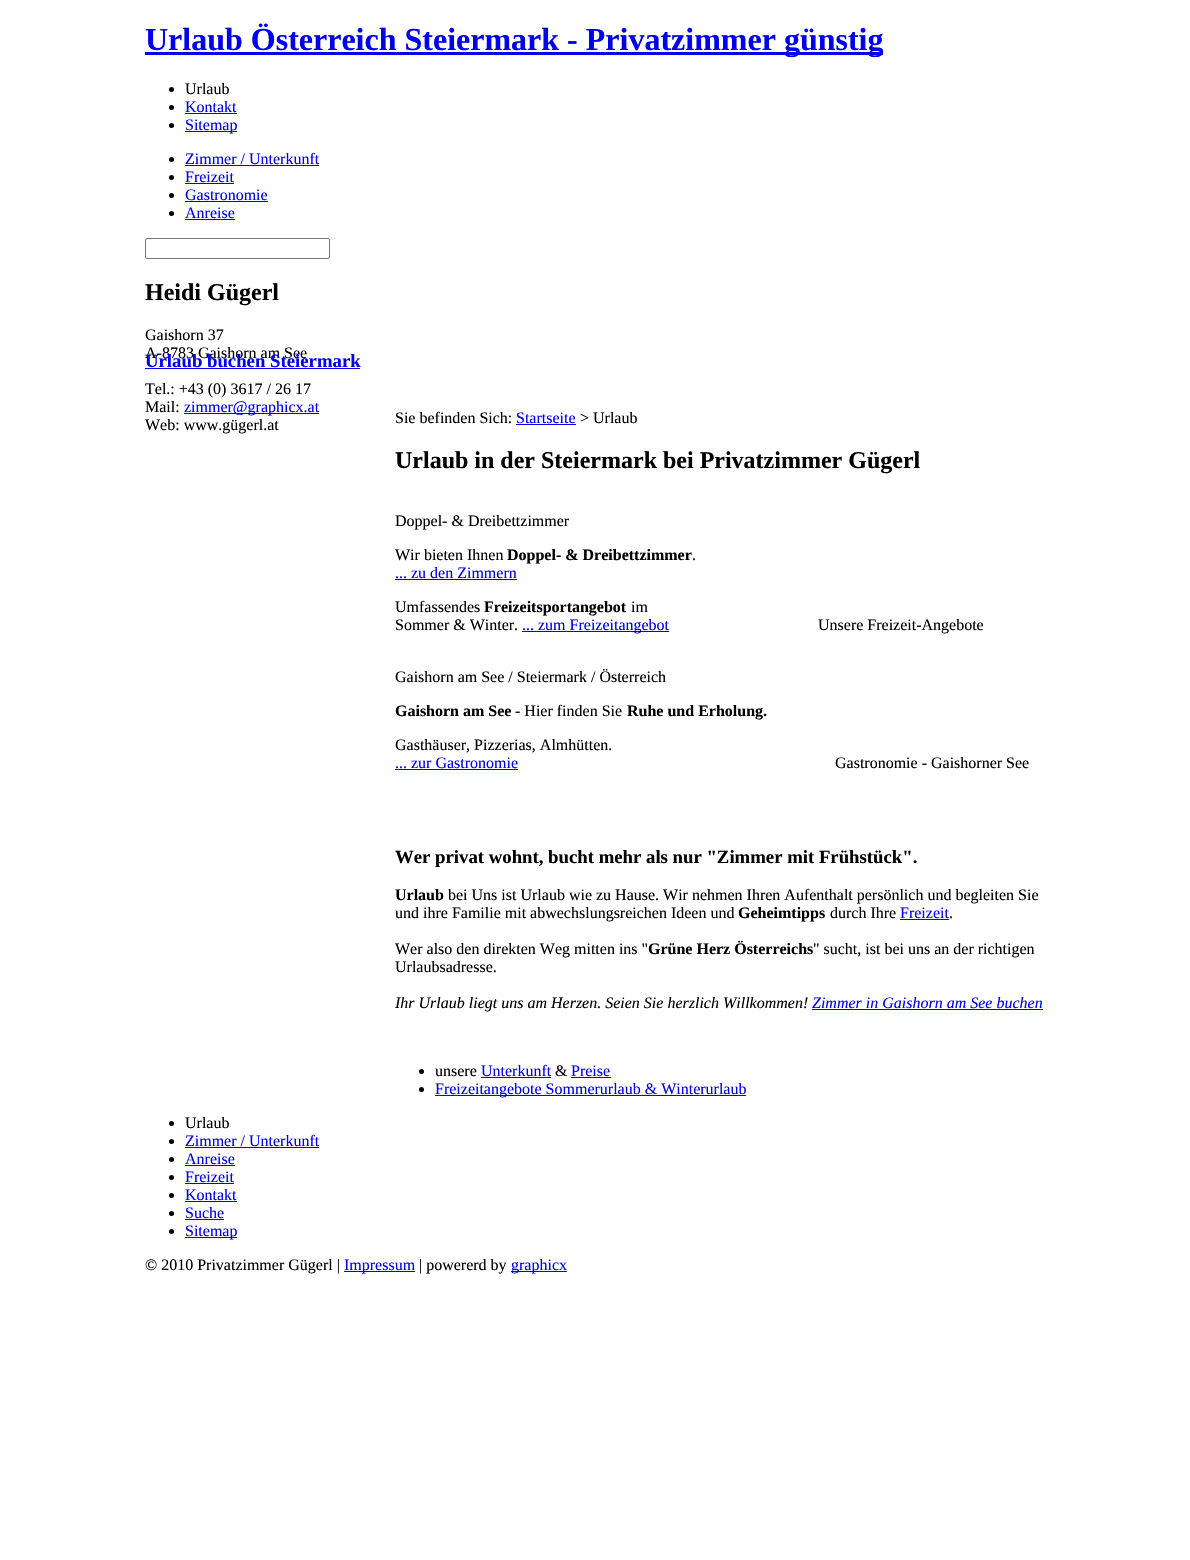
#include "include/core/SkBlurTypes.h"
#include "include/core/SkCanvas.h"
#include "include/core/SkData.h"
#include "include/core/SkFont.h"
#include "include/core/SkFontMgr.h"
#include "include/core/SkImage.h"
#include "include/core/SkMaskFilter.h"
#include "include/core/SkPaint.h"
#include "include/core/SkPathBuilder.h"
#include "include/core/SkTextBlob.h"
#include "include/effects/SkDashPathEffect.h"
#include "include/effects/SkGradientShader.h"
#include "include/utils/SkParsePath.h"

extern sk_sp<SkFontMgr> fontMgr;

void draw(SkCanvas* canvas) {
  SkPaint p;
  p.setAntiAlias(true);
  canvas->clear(SK_ColorWHITE);
  p.setColor(SkColorSetRGB(0, 0, 238));
  canvas->drawRect(SkRect::MakeLTRB(145, 52, 883, 55), p);
  p.setColor(SK_ColorBLACK);
  canvas->drawCircle(171.5f, 89.5f, 2.5f, p);
  canvas->drawCircle(171.5f, 107.5f, 2.5f, p);
  p.setColor(SkColorSetRGB(0, 0, 238));
  canvas->drawRect(SkRect::MakeLTRB(185, 113, 237, 114), p);
  p.setColor(SK_ColorBLACK);
  canvas->drawCircle(171.5f, 125.5f, 2.5f, p);
  p.setColor(SkColorSetRGB(0, 0, 238));
  canvas->drawRect(SkRect::MakeLTRB(185, 131, 237, 132), p);
  p.setColor(SK_ColorBLACK);
  canvas->drawCircle(171.5f, 159.5f, 2.5f, p);
  p.setColor(SkColorSetRGB(0, 0, 238));
  canvas->drawRect(SkRect::MakeLTRB(185, 165, 319, 166), p);
  p.setColor(SK_ColorBLACK);
  canvas->drawCircle(171.5f, 177.5f, 2.5f, p);
  p.setColor(SkColorSetRGB(0, 0, 238));
  canvas->drawRect(SkRect::MakeLTRB(185, 183, 234, 184), p);
  p.setColor(SK_ColorBLACK);
  canvas->drawCircle(171.5f, 195.5f, 2.5f, p);
  p.setColor(SkColorSetRGB(0, 0, 238));
  canvas->drawRect(SkRect::MakeLTRB(185, 201, 268, 202), p);
  p.setColor(SK_ColorBLACK);
  canvas->drawCircle(171.5f, 213.5f, 2.5f, p);
  p.setColor(SkColorSetRGB(0, 0, 238));
  canvas->drawRect(SkRect::MakeLTRB(185, 219, 235, 220), p);
  p.setStyle(SkPaint::kStroke_Style);
  p.setStrokeWidth(1);
  p.setColor(SkColorSetRGB(118, 118, 118));
  canvas->drawRoundRect(SkRect::MakeLTRB(145.5f, 238.5f, 329.5f, 258.5f), 1.5f, 1.5f, p);
  p.setStyle(SkPaint::kFill_Style);
  p.setColor(SkColorSetRGB(0, 0, 238));
  canvas->drawRect(SkRect::MakeLTRB(184, 413, 319, 414), p);
  canvas->drawRect(SkRect::MakeLTRB(145, 368, 360, 369), p);
  canvas->drawRect(SkRect::MakeLTRB(516, 424, 576, 425), p);
  canvas->drawRect(SkRect::MakeLTRB(395, 579, 517, 580), p);
  canvas->drawRect(SkRect::MakeLTRB(522, 631, 669, 632), p);
  canvas->drawRect(SkRect::MakeLTRB(395, 769, 518, 770), p);
  canvas->drawRect(SkRect::MakeLTRB(900, 919, 949, 920), p);
  canvas->drawRect(SkRect::MakeLTRB(812, 1009, 1043, 1010), p);
  p.setColor(SK_ColorBLACK);
  canvas->drawCircle(421.5f, 1071.5f, 2.5f, p);
  p.setColor(SkColorSetRGB(0, 0, 238));
  canvas->drawRect(SkRect::MakeLTRB(481, 1077, 551, 1078), p);
  canvas->drawRect(SkRect::MakeLTRB(571, 1077, 611, 1078), p);
  p.setColor(SK_ColorBLACK);
  canvas->drawCircle(421.5f, 1089.5f, 2.5f, p);
  p.setColor(SkColorSetRGB(0, 0, 238));
  canvas->drawRect(SkRect::MakeLTRB(435, 1095, 746, 1096), p);
  p.setColor(SK_ColorBLACK);
  canvas->drawCircle(171.5f, 1123.5f, 2.5f, p);
  canvas->drawCircle(171.5f, 1141.5f, 2.5f, p);
  p.setColor(SkColorSetRGB(0, 0, 238));
  canvas->drawRect(SkRect::MakeLTRB(185, 1147, 319, 1148), p);
  p.setColor(SK_ColorBLACK);
  canvas->drawCircle(171.5f, 1159.5f, 2.5f, p);
  p.setColor(SkColorSetRGB(0, 0, 238));
  canvas->drawRect(SkRect::MakeLTRB(185, 1165, 235, 1166), p);
  p.setColor(SK_ColorBLACK);
  canvas->drawCircle(171.5f, 1177.5f, 2.5f, p);
  p.setColor(SkColorSetRGB(0, 0, 238));
  canvas->drawRect(SkRect::MakeLTRB(185, 1183, 234, 1184), p);
  p.setColor(SK_ColorBLACK);
  canvas->drawCircle(171.5f, 1195.5f, 2.5f, p);
  p.setColor(SkColorSetRGB(0, 0, 238));
  canvas->drawRect(SkRect::MakeLTRB(185, 1201, 237, 1202), p);
  p.setColor(SK_ColorBLACK);
  canvas->drawCircle(171.5f, 1213.5f, 2.5f, p);
  p.setColor(SkColorSetRGB(0, 0, 238));
  canvas->drawRect(SkRect::MakeLTRB(185, 1219, 224, 1220), p);
  p.setColor(SK_ColorBLACK);
  canvas->drawCircle(171.5f, 1231.5f, 2.5f, p);
  p.setColor(SkColorSetRGB(0, 0, 238));
  canvas->drawRect(SkRect::MakeLTRB(185, 1237, 237, 1238), p);
  canvas->drawRect(SkRect::MakeLTRB(344, 1271, 415, 1272), p);
  canvas->drawRect(SkRect::MakeLTRB(511, 1271, 567, 1272), p);
  SkFont font1(fontMgr->matchFamilyStyle("Liberation Serif", SkFontStyle::Bold()), 32);
  font1.setSubpixel(true);
  canvas->drawString("Urlaub Österreich Steiermark - Privatzimmer günstig", 145, 50, font1, p);
  SkFont font2(fontMgr->matchFamilyStyle("Liberation Serif", SkFontStyle::Normal()), 16);
  font2.setSubpixel(true);
  p.setColor(SK_ColorBLACK);
  canvas->drawString("Urlaub", 185, 94, font2, p);
  p.setColor(SkColorSetRGB(0, 0, 238));
  canvas->drawString("Kontakt", 185, 112, font2, p);
  canvas->drawString("Sitemap", 185, 130, font2, p);
  canvas->drawString("Zimmer / Unterkunft", 185, 164, font2, p);
  canvas->drawString("Freizeit", 185, 182, font2, p);
  canvas->drawString("Gastronomie", 185, 200, font2, p);
  canvas->drawString("Anreise", 185, 218, font2, p);
  SkFont font3(fontMgr->matchFamilyStyle("Liberation Serif", SkFontStyle::Bold()), 24);
  font3.setSubpixel(true);
  p.setColor(SK_ColorBLACK);
  canvas->drawString("Heidi Gügerl", 145, 300, font3, p);
  canvas->drawString("Gaishorn 37", 145, 340, font2, p);
  canvas->drawString("A-8783 Gaishorn am See", 145, 358, font2, p);
  canvas->drawString("Tel.: +43 (0) 3617 / 26 17", 145, 394, font2, p);
  canvas->drawString("Mail:", 145, 412, font2, p);
  p.setColor(SkColorSetRGB(0, 0, 238));
  canvas->drawString("zimmer@graphicx.at", 184, 412, font2, p);
  p.setColor(SK_ColorBLACK);
  canvas->drawString("Web: www.gügerl.at", 145, 430, font2, p);
  SkFont font4(fontMgr->matchFamilyStyle("Liberation Serif", SkFontStyle::Bold()), 18.75f);
  font4.setSubpixel(true);
  p.setColor(SkColorSetRGB(0, 0, 238));
  canvas->drawString("Urlaub buchen Steiermark", 145, 367, font4, p);
  p.setColor(SK_ColorBLACK);
  canvas->drawString("Sie befinden Sich:", 395, 423, font2, p);
  p.setColor(SkColorSetRGB(0, 0, 238));
  canvas->drawString("Startseite", 516, 423, font2, p);
  p.setColor(SK_ColorBLACK);
  canvas->drawString("> Urlaub", 580, 423, font2, p);
  canvas->drawString("Urlaub in der Steiermark bei Privatzimmer Gügerl", 395, 468, font3, p);
  canvas->drawString("Doppel- & Dreibettzimmer", 395, 526, font2, p);
  canvas->drawString("Wir bieten Ihnen", 395, 560, font2, p);
  SkFont font5(fontMgr->matchFamilyStyle("Liberation Serif", SkFontStyle::Bold()), 16);
  font5.setSubpixel(true);
  canvas->drawString("Doppel- & Dreibettzimmer", 507, 560, font5, p);
  canvas->drawString(".", 692, 560, font2, p);
  p.setColor(SkColorSetRGB(0, 0, 238));
  canvas->drawString("... zu den Zimmern", 395, 578, font2, p);
  p.setColor(SK_ColorBLACK);
  canvas->drawString("Umfassendes", 395, 612, font2, p);
  canvas->drawString("Freizeitsportangebot", 484, 612, font5, p);
  canvas->drawString("im", 631, 612, font2, p);
  canvas->drawString("Sommer & Winter.", 395, 630, font2, p);
  p.setColor(SkColorSetRGB(0, 0, 238));
  canvas->drawString("... zum Freizeitangebot", 522, 630, font2, p);
  p.setColor(SK_ColorBLACK);
  canvas->drawString("Unsere Freizeit-Angebote", 818, 630, font2, p);
  canvas->drawString("Gaishorn am See / Steiermark / Österreich", 395, 682, font2, p);
  canvas->drawString("Gaishorn am See", 395, 716, font5, p);
  canvas->drawString("- Hier finden Sie", 515, 716, font2, p);
  canvas->drawString("Ruhe und Erholung.", 627, 716, font5, p);
  canvas->drawString("Gasthäuser, Pizzerias, Almhütten.", 395, 750, font2, p);
  p.setColor(SkColorSetRGB(0, 0, 238));
  canvas->drawString("... zur Gastronomie", 395, 768, font2, p);
  p.setColor(SK_ColorBLACK);
  canvas->drawString("Gastronomie - Gaishorner See", 835, 768, font2, p);
  canvas->drawString("Wer privat wohnt, bucht mehr als nur \"Zimmer mit Frühstück\".", 395, 863, font4, p);
  canvas->drawString("Urlaub", 395, 900, font5, p);
  canvas->drawString("bei Uns ist Urlaub wie zu Hause. Wir nehmen Ihren Aufenthalt persönlich und begleiten Sie", 448, 900, font2, p);
  canvas->drawString("und ihre Familie mit abwechslungsreichen Ideen und", 395, 918, font2, p);
  canvas->drawString("Geheimtipps", 738, 918, font5, p);
  canvas->drawString("durch Ihre", 830, 918, font2, p);
  p.setColor(SkColorSetRGB(0, 0, 238));
  canvas->drawString("Freizeit", 900, 918, font2, p);
  p.setColor(SK_ColorBLACK);
  canvas->drawString(".", 949, 918, font2, p);
  canvas->drawString("Wer also den direkten Weg mitten ins \"", 395, 954, font2, p);
  canvas->drawString("Grüne Herz Österreichs", 648, 954, font5, p);
  canvas->drawString("\" sucht, ist bei uns an der richtigen", 813, 954, font2, p);
  canvas->drawString("Urlaubsadresse.", 395, 972, font2, p);
  SkFont font6(fontMgr->matchFamilyStyle("Liberation Serif", SkFontStyle::Italic()), 16);
  font6.setSubpixel(true);
  canvas->drawString("Ihr Urlaub liegt uns am Herzen. Seien Sie herzlich Willkommen!", 395, 1008, font6, p);
  p.setColor(SkColorSetRGB(0, 0, 238));
  canvas->drawString("Zimmer in Gaishorn am See buchen", 812, 1008, font6, p);
  p.setColor(SK_ColorBLACK);
  canvas->drawString("unsere", 435, 1076, font2, p);
  p.setColor(SkColorSetRGB(0, 0, 238));
  canvas->drawString("Unterkunft", 481, 1076, font2, p);
  p.setColor(SK_ColorBLACK);
  canvas->drawString("&", 555, 1076, font2, p);
  p.setColor(SkColorSetRGB(0, 0, 238));
  canvas->drawString("Preise", 571, 1076, font2, p);
  canvas->drawString("Freizeitangebote Sommerurlaub & Winterurlaub", 435, 1094, font2, p);
  p.setColor(SK_ColorBLACK);
  canvas->drawString("Urlaub", 185, 1128, font2, p);
  p.setColor(SkColorSetRGB(0, 0, 238));
  canvas->drawString("Zimmer / Unterkunft", 185, 1146, font2, p);
  canvas->drawString("Anreise", 185, 1164, font2, p);
  canvas->drawString("Freizeit", 185, 1182, font2, p);
  canvas->drawString("Kontakt", 185, 1200, font2, p);
  canvas->drawString("Suche", 185, 1218, font2, p);
  canvas->drawString("Sitemap", 185, 1236, font2, p);
  p.setColor(SK_ColorBLACK);
  canvas->drawString("© 2010 Privatzimmer Gügerl |", 145, 1270, font2, p);
  p.setColor(SkColorSetRGB(0, 0, 238));
  canvas->drawString("Impressum", 344, 1270, font2, p);
  p.setColor(SK_ColorBLACK);
  canvas->drawString("| powererd by", 419, 1270, font2, p);
  p.setColor(SkColorSetRGB(0, 0, 238));
  canvas->drawString("graphicx", 511, 1270, font2, p);
}
